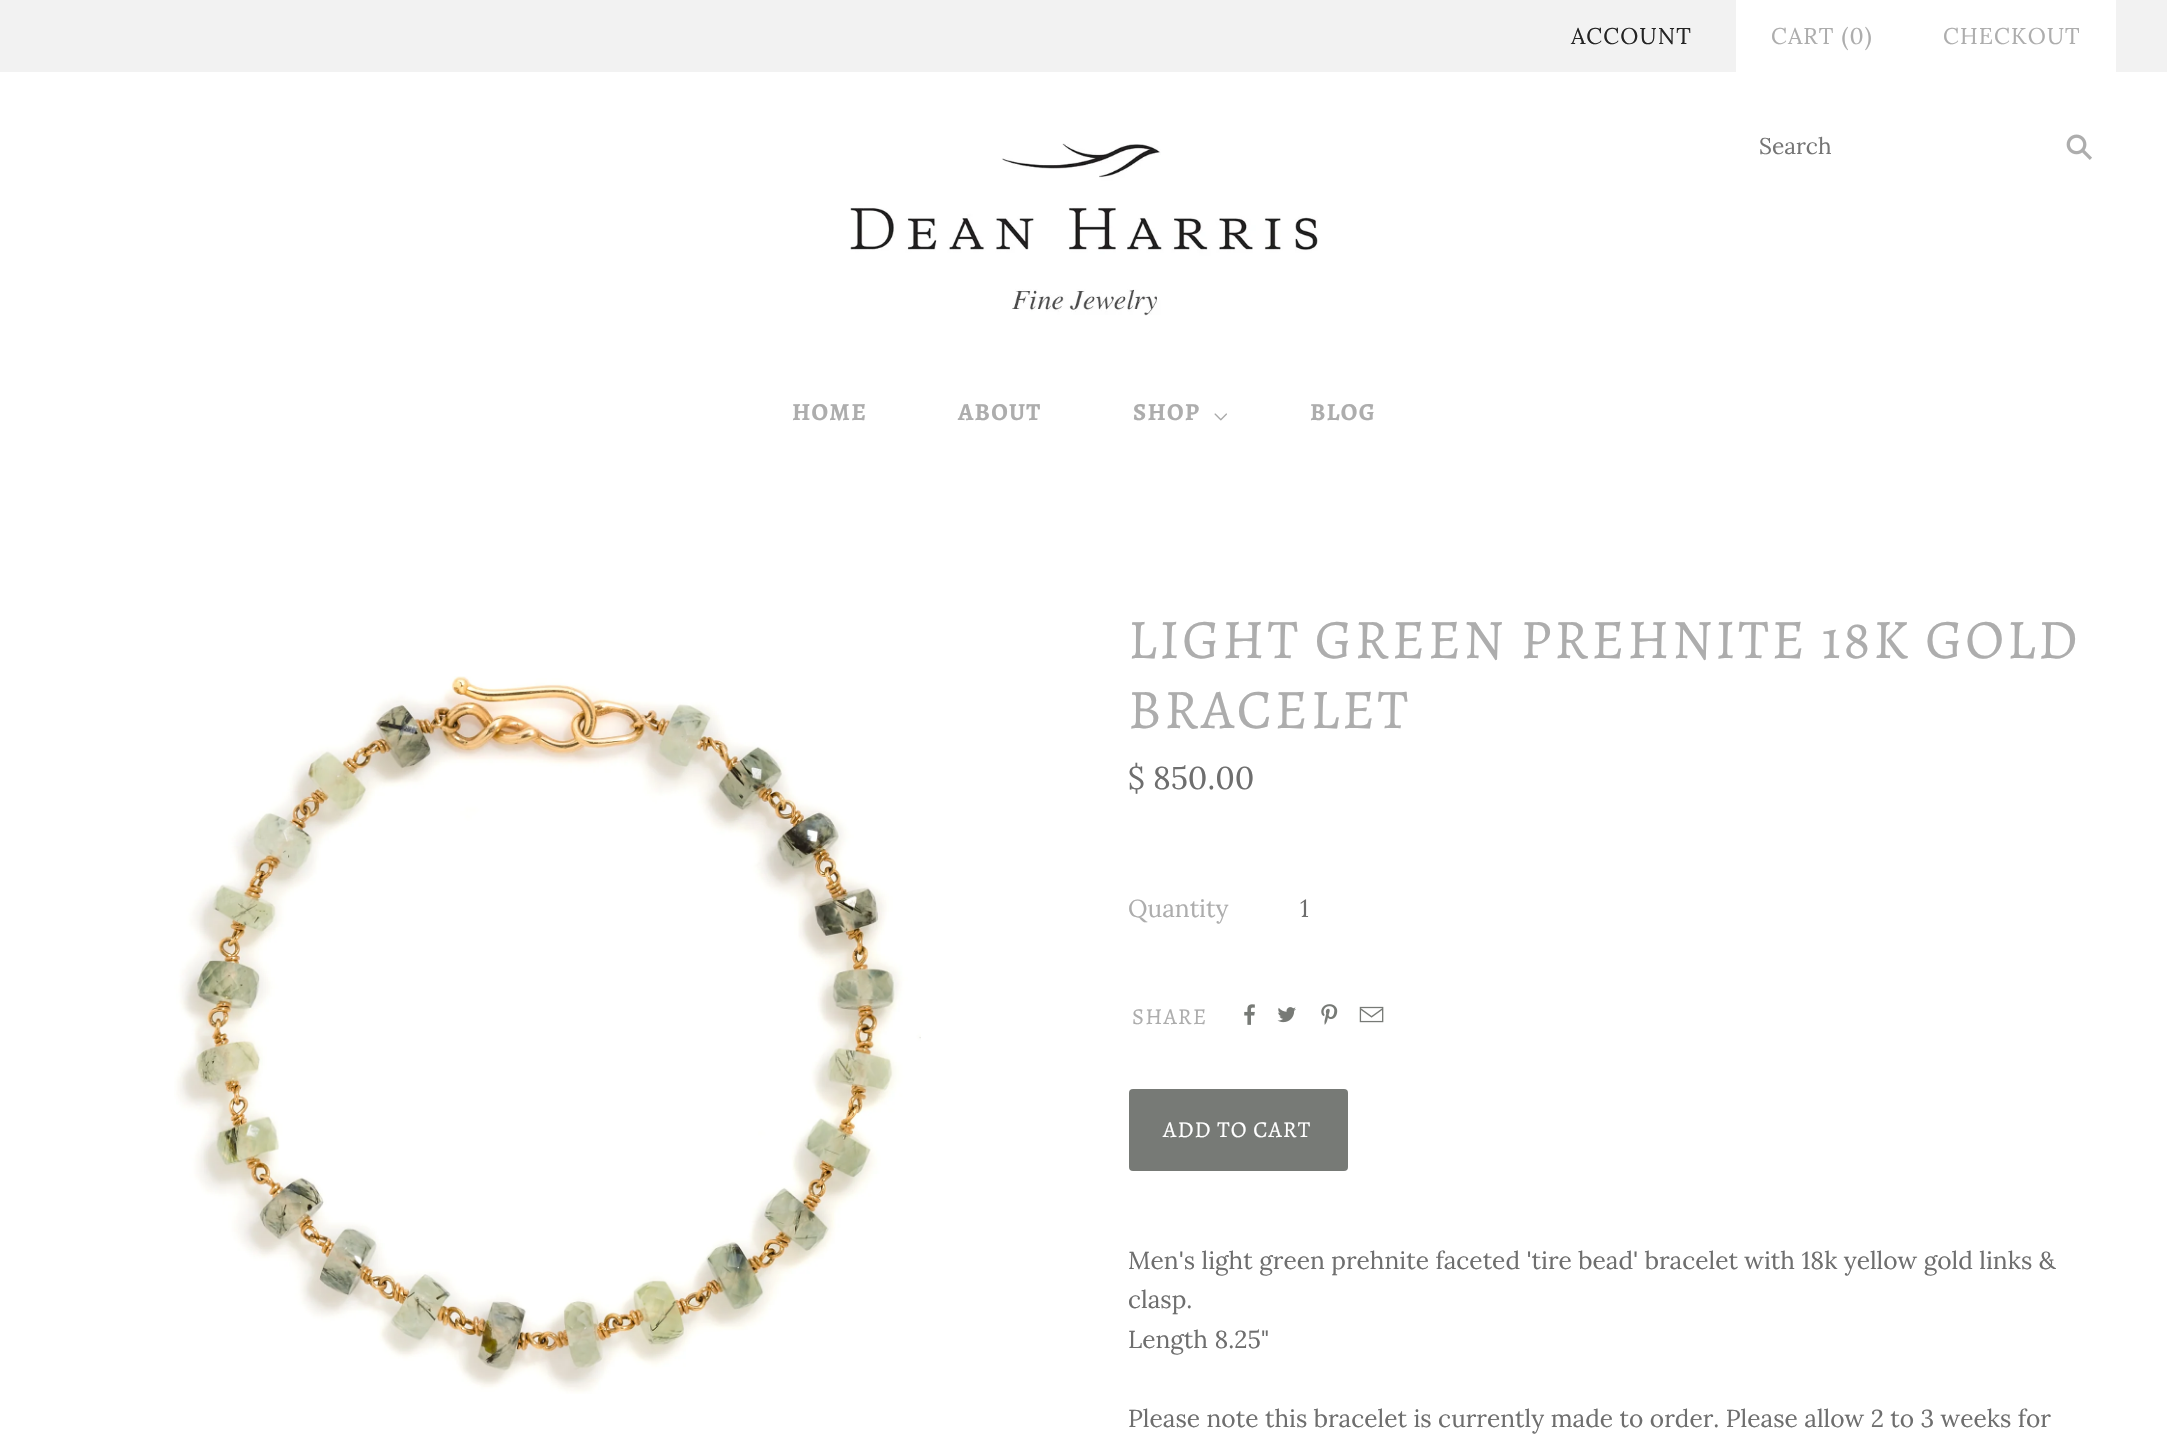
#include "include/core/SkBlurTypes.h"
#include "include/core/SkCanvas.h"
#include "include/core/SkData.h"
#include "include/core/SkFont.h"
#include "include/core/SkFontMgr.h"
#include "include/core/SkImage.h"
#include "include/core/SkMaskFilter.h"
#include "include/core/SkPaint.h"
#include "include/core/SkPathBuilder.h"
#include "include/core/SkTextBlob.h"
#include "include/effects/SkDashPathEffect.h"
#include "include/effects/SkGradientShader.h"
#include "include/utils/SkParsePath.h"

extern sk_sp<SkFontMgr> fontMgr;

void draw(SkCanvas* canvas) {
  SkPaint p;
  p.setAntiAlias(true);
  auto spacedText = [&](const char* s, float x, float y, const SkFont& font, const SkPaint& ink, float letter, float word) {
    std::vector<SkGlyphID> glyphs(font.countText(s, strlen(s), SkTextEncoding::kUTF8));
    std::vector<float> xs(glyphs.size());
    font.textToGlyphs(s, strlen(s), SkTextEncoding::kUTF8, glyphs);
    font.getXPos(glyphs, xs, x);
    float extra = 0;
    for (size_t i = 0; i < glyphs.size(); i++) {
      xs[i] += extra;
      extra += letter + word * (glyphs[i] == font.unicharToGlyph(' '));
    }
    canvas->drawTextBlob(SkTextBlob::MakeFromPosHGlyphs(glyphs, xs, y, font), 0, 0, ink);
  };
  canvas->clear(SK_ColorWHITE);
  p.setColor(SkColorSetRGB(242, 242, 242));
  canvas->drawRect(SkRect::MakeLTRB(0, 0, 2167, 72), p);
  p.setColor(SK_ColorWHITE);
  canvas->drawRect(SkRect::MakeLTRB(1736, 0, 2116, 72), p);
  canvas->drawImageRect(SkImages::DeferredFromEncodedData(SkData::MakeFromFileName("images/1.png")), SkRect::MakeLTRB(2066, 134, 2092, 160), SkSamplingOptions());
  canvas->drawImageRect(SkImages::DeferredFromEncodedData(SkData::MakeFromFileName("images/2.png")), SkRect::MakeLTRB(850, 143, 1318, 316), SkSamplingOptions());
  canvas->drawImageRect(SkImages::DeferredFromEncodedData(SkData::MakeFromFileName("images/3.png")), SkRect::MakeLTRB(1214, 413, 1227, 421), SkSamplingOptions());
  canvas->drawImageRect(SkImages::DeferredFromEncodedData(SkData::MakeFromFileName("images/4.png")), SkRect::MakeLTRB(174, 676, 921, 1394), SkSamplingOptions());
  canvas->drawImageRect(SkImages::DeferredFromEncodedData(SkData::MakeFromFileName("images/5.png")), SkRect::MakeLTRB(1244, 1004, 1255, 1025), SkSamplingOptions());
  canvas->drawImageRect(SkImages::DeferredFromEncodedData(SkData::MakeFromFileName("images/6.png")), SkRect::MakeLTRB(1277, 1007, 1296, 1023), SkSamplingOptions());
  canvas->drawImageRect(SkImages::DeferredFromEncodedData(SkData::MakeFromFileName("images/7.png")), SkRect::MakeLTRB(1321, 1004, 1338, 1025), SkSamplingOptions());
  canvas->drawImageRect(SkImages::DeferredFromEncodedData(SkData::MakeFromFileName("images/8.png")), SkRect::MakeLTRB(1359, 1006, 1384, 1023), SkSamplingOptions());
  p.setColor(SkColorSetRGB(119, 122, 118));
  canvas->drawRoundRect(SkRect::MakeLTRB(1129, 1089, 1348, 1171), 4, 4, p);
  SkFont font1(fontMgr->matchFamilyStyle("Lora", SkFontStyle::Normal()), 22.75f);
  font1.setSubpixel(true);
  p.setColor(SkColorSetRGB(36, 36, 36));
  spacedText("ACCOUNT", 1571, 44, font1, p, 1.1f, 0);
  p.setColor(SkColorSetRGB(173, 173, 173));
  spacedText("CART (0)", 1771, 44, font1, p, 1.1f, 0);
  spacedText("CHECKOUT", 1943, 44, font1, p, 1.1f, 0);
  p.setColor(SkColorSetRGB(117, 117, 117));
  canvas->drawString("Search", 1759, 154, font1, p);
  SkFont font2(fontMgr->matchFamilyStyle("Alegreya", SkFontStyle::Bold()), 24.5f);
  font2.setSubpixel(true);
  p.setColor(SkColorSetRGB(173, 173, 173));
  spacedText("HOME", 792, 420, font2, p, 1.25f, 0);
  spacedText("ABOUT", 958, 420, font2, p, 1.25f, 0);
  spacedText("SHOP", 1133, 420, font2, p, 1.25f, 0);
  spacedText("BLOG", 1310, 420, font2, p, 1.25f, 0);
  SkFont font3(fontMgr->matchFamilyStyle("Alegreya", SkFontStyle::Normal()), 56);
  font3.setSubpixel(true);
  spacedText("LIGHT GREEN PREHNITE 18K GOLD", 1128, 658, font3, p, 2.8f, 0);
  spacedText("BRACELET", 1128, 728, font3, p, 2.8f, 0);
  SkFont font4(fontMgr->matchFamilyStyle("Lora", SkFontStyle::Normal()), 31.5f);
  font4.setSubpixel(true);
  p.setColor(SkColorSetRGB(110, 110, 110));
  canvas->drawString("$ 850.00", 1128, 789, font4, p);
  SkFont font5(fontMgr->matchFamilyStyle("Lora", SkFontStyle::Normal()), 24.5f);
  font5.setSubpixel(true);
  p.setColor(SkColorSetRGB(173, 173, 173));
  canvas->drawString("Quantity", 1128, 917, font5, p);
  p.setColor(SkColorSetRGB(110, 110, 110));
  canvas->drawString("1", 1300, 917, font5, p);
  SkFont font6(fontMgr->matchFamilyStyle("Alegreya", SkFontStyle::Normal()), 22.75f);
  font6.setSubpixel(true);
  p.setColor(SkColorSetRGB(173, 173, 173));
  spacedText("SHARE", 1132, 1024, font6, p, 1.1f, 0);
  p.setColor(SK_ColorWHITE);
  spacedText("ADD TO CART", 1163, 1137, font6, p, 1.1f, 0);
  p.setColor(SkColorSetRGB(110, 110, 110));
  canvas->drawString("Men's light green prehnite faceted 'tire bead' bracelet with 18k yellow gold links &", 1128, 1269, font5, p);
  canvas->drawString("clasp.", 1128, 1308, font5, p);
  canvas->drawString("Length 8.25\"", 1128, 1348, font5, p);
  canvas->drawString("Please note this bracelet is currently made to order. Please allow 2 to 3 weeks for", 1128, 1427, font5, p);
}
